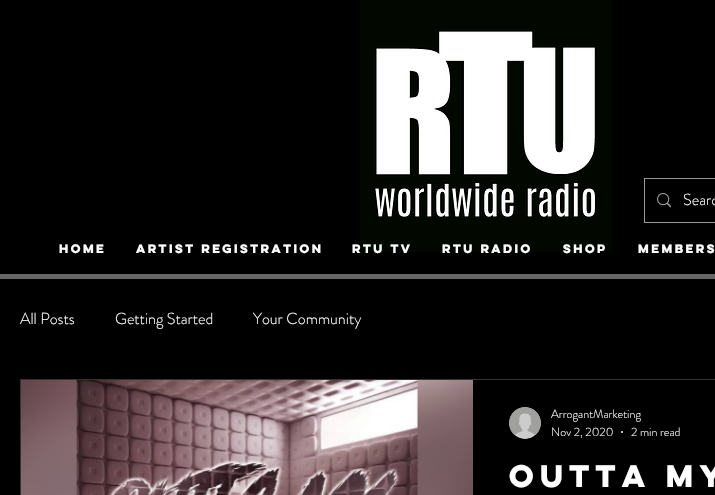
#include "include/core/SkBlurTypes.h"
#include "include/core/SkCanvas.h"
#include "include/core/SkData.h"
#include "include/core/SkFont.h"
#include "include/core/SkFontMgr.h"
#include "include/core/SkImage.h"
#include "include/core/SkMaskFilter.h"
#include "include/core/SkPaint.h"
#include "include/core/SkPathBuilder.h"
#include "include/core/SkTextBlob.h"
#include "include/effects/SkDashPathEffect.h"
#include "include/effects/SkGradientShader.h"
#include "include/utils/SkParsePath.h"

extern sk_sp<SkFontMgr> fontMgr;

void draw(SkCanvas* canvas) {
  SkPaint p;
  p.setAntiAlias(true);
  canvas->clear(SK_ColorBLACK);
  canvas->drawImageRect(SkImages::DeferredFromEncodedData(SkData::MakeFromFileName("images/1.png")), SkRect::MakeLTRB(360, 0, 612, 252), SkSamplingOptions());
  p.setStyle(SkPaint::kStroke_Style);
  p.setStrokeWidth(1);
  p.setColor(SkColorSetRGB(153, 153, 153));
  canvas->drawRect(SkRect::MakeLTRB(644.5f, 178.5f, 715.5f, 222.5f), p);
  canvas->drawImageRect(SkImages::DeferredFromEncodedData(SkData::MakeFromFileName("images/2.png")), SkRect::MakeLTRB(657, 193, 671, 208), SkSamplingOptions());
  p.setStyle(SkPaint::kFill_Style);
  p.setColor(SkColorSetRGB(102, 102, 102));
  canvas->drawRect(SkRect::MakeLTRB(0, 274, 715, 279), p);
  p.setStyle(SkPaint::kStroke_Style);
  p.setColor(SkColorSetRGB(51, 51, 51));
  canvas->drawRect(SkRect::MakeLTRB(20.5f, 379.5f, 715.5f, 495.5f), p);
  canvas->drawImageRect(SkImages::DeferredFromEncodedData(SkData::MakeFromFileName("images/3.png")), SkRect::MakeLTRB(21, 380, 473, 495), SkSamplingOptions());
  canvas->drawImageRect(SkImages::DeferredFromEncodedData(SkData::MakeFromFileName("images/4.png")), SkRect::MakeLTRB(509, 407, 541, 439), SkSamplingOptions());
  p.setStyle(SkPaint::kFill_Style);
  p.setColor(SK_ColorWHITE);
  canvas->drawCircle(622, 432, 1, p);
  SkFont font1(fontMgr->matchFamilyStyle("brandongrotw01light", SkFontStyle(300, SkFontStyle::kNormal_Width, SkFontStyle::kUpright_Slant)), 16);
  font1.setSubpixel(true);
  canvas->drawString("Searc", 683, 205, font1, p);
  SkFont font2(fontMgr->matchFamilyStyle("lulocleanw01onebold", SkFontStyle::Bold()), 11);
  font2.setSubpixel(true);
  canvas->drawString("HOME", 59, 253, font2, p);
  canvas->drawString("ARTIST REGISTRATION", 136, 253, font2, p);
  canvas->drawString("RTU TV", 352, 253, font2, p);
  canvas->drawString("RTU RADIO", 442, 253, font2, p);
  canvas->drawString("SHOP", 563, 253, font2, p);
  canvas->drawString("Members", 638, 253, font2, p);
  canvas->drawString("All Posts", 20, 324, font1, p);
  canvas->drawString("Getting Started", 115, 324, font1, p);
  canvas->drawString("Your Community", 253, 324, font1, p);
  SkFont font3(fontMgr->matchFamilyStyle("brandongrotw01light", SkFontStyle(300, SkFontStyle::kNormal_Width, SkFontStyle::kUpright_Slant)), 12);
  font3.setSubpixel(true);
  canvas->drawString("ArrogantMarketing", 551, 418, font3, p);
  canvas->drawString("Nov 2, 2020", 551, 436, font3, p);
  canvas->drawString("2 min read", 631, 436, font3, p);
  SkFont font4(fontMgr->matchFamilyStyle("lulocleanw01onebold", SkFontStyle::Bold()), 28);
  font4.setSubpixel(true);
  canvas->drawString("Outta My", 509, 487, font4, p);
}
